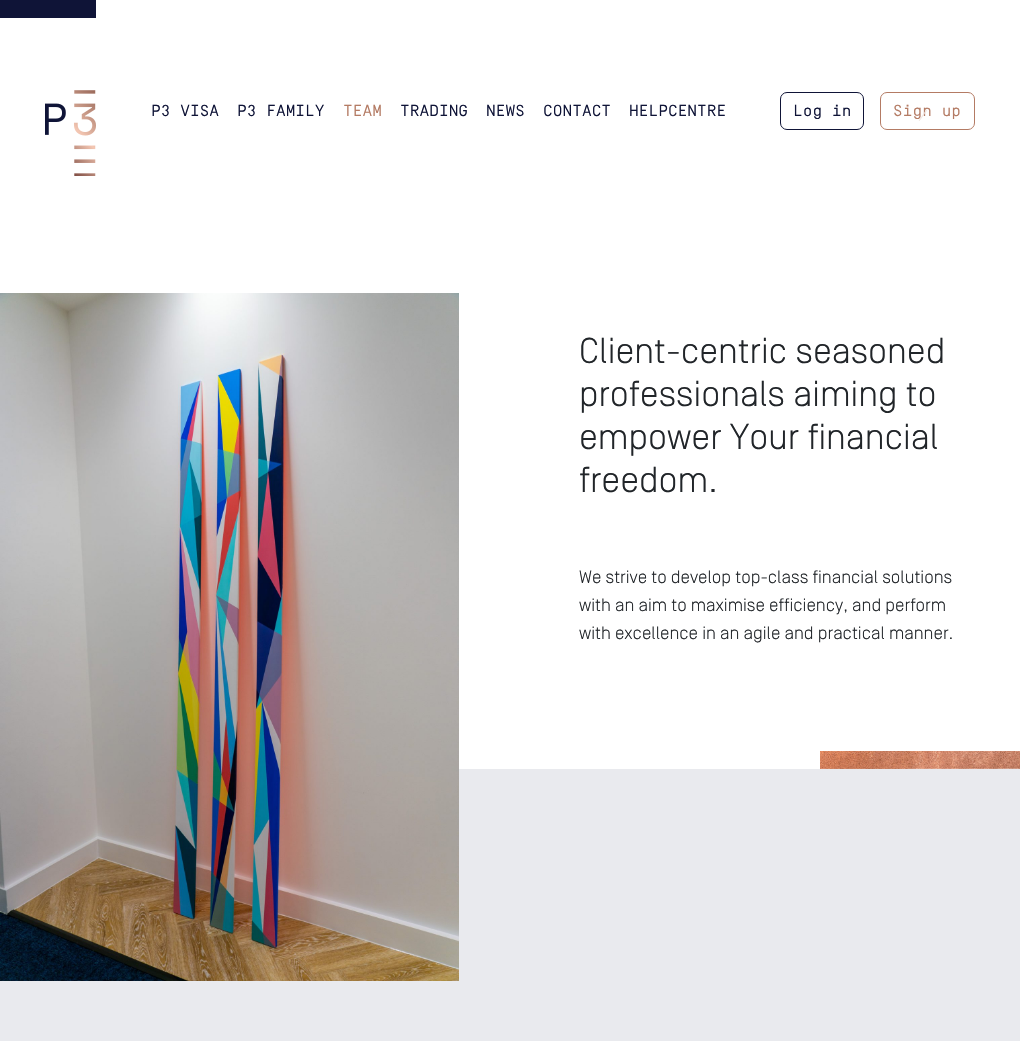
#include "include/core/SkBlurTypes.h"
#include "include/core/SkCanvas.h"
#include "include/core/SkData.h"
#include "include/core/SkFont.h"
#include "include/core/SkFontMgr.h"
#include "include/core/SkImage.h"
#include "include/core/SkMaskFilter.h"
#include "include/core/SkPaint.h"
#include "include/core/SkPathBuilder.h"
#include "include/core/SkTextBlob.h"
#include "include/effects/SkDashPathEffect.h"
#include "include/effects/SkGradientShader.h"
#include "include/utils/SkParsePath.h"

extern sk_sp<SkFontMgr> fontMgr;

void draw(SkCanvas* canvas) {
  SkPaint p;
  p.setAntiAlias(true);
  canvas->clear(SK_ColorWHITE);
  p.setColor(SkColorSetRGB(15, 20, 55));
  canvas->drawRect(SkRect::MakeLTRB(0, 0, 96, 18), p);
  canvas->drawImageRect(SkImages::DeferredFromEncodedData(SkData::MakeFromFileName("images/1.png")), SkRect::MakeLTRB(45, 90, 96, 176), SkSamplingOptions());
  p.setStyle(SkPaint::kStroke_Style);
  p.setStrokeWidth(1);
  canvas->drawRoundRect(SkRect::MakeLTRB(780.5f, 92.5f, 863.5f, 129.5f), 6.5f, 6.5f, p);
  p.setColor(SkColorSetRGB(180, 123, 100));
  canvas->drawRoundRect(SkRect::MakeLTRB(880.5f, 92.5f, 974.5f, 129.5f), 6.5f, 6.5f, p);
  p.setStyle(SkPaint::kFill_Style);
  p.setColor(SkColorSetRGB(233, 234, 238));
  canvas->drawRect(SkRect::MakeLTRB(0, 969, 1020, 1041), p);
  canvas->drawImageRect(SkImages::DeferredFromEncodedData(SkData::MakeFromFileName("images/2.png")), SkRect::MakeLTRB(0, 293, 459, 981), SkSamplingOptions());
  canvas->drawRect(SkRect::MakeLTRB(459, 769, 1020, 969), p);
  canvas->drawImageRect(SkImages::DeferredFromEncodedData(SkData::MakeFromFileName("images/3.png")), SkRect::MakeLTRB(820, 751, 1020, 769), SkSamplingOptions());
  SkFont font1(fontMgr->matchFamilyStyle("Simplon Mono", SkFontStyle::Normal()), 16);
  font1.setSubpixel(true);
  p.setColor(SkColorSetRGB(15, 20, 55));
  canvas->drawString("P3 VISA", 151, 116, font1, p);
  canvas->drawString("P3 FAMILY", 237, 116, font1, p);
  p.setColor(SkColorSetRGB(180, 123, 100));
  canvas->drawString("TEAM", 343, 116, font1, p);
  p.setColor(SkColorSetRGB(15, 20, 55));
  canvas->drawString("TRADING", 400, 116, font1, p);
  canvas->drawString("NEWS", 486, 116, font1, p);
  canvas->drawString("CONTACT", 543, 116, font1, p);
  canvas->drawString("HELPCENTRE", 629, 116, font1, p);
  canvas->drawString("Log in", 793, 116, font1, p);
  p.setColor(SkColorSetRGB(180, 123, 100));
  canvas->drawString("Sign up", 893, 116, font1, p);
  p.setColor(SkColorSetRGB(240, 229, 224));
  canvas->drawString("/", 918, 121, font1, p);
  SkFont font2(fontMgr->matchFamilyStyle("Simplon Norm", SkFontStyle(300, SkFontStyle::kNormal_Width, SkFontStyle::kUpright_Slant)), 36);
  font2.setSubpixel(true);
  p.setColor(SkColorSetRGB(33, 37, 41));
  canvas->drawString("Client-centric seasoned", 579, 363, font2, p);
  canvas->drawString("professionals aiming to", 579, 406, font2, p);
  canvas->drawString("empower Your financial", 579, 449, font2, p);
  canvas->drawString("freedom.", 579, 492, font2, p);
  SkFont font3(fontMgr->matchFamilyStyle("Simplon Norm", SkFontStyle(300, SkFontStyle::kNormal_Width, SkFontStyle::kUpright_Slant)), 18);
  font3.setSubpixel(true);
  canvas->drawString("We strive to develop top-class financial solutions", 579, 583, font3, p);
  canvas->drawString("with an aim to maximise efficiency, and perform", 579, 611, font3, p);
  canvas->drawString("with excellence in an agile and practical manner.", 579, 639, font3, p);
}
